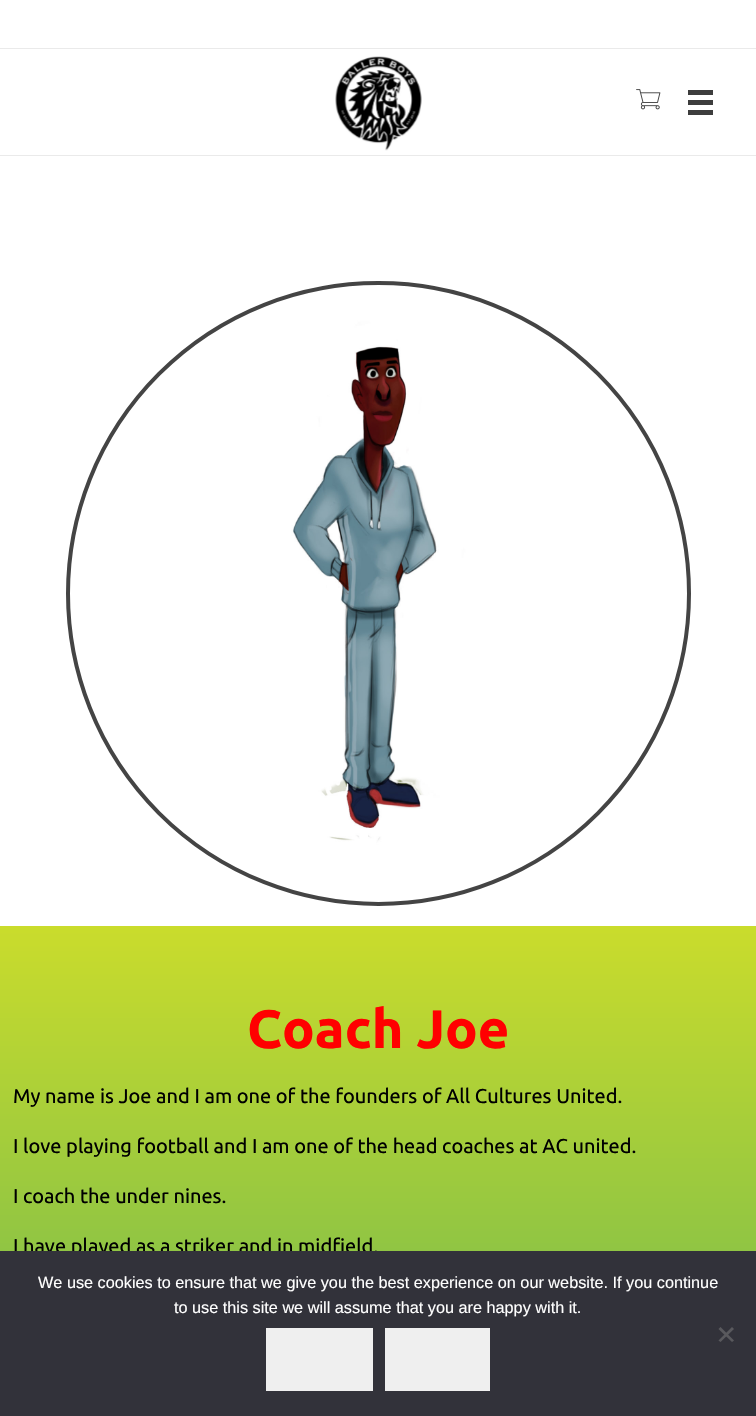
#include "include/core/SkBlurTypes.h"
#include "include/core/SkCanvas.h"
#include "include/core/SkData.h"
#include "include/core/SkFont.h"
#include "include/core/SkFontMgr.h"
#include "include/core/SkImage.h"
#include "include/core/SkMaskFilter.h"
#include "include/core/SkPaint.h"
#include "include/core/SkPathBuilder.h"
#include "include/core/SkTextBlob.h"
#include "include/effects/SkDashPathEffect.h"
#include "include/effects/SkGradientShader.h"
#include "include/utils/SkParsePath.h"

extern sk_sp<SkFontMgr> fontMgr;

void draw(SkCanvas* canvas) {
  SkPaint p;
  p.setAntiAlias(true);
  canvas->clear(SK_ColorWHITE);
  p.setColor(SkColorSetRGB(234, 234, 234));
  canvas->drawRect(SkRect::MakeLTRB(0, 48, 756, 49), p);
  canvas->drawRect(SkRect::MakeLTRB(0, 155, 756, 156), p);
  canvas->drawImageRect(SkImages::DeferredFromEncodedData(SkData::MakeFromFileName("images/1.png")), SkRect::MakeLTRB(335, 56, 422, 151), SkSamplingOptions());
  canvas->drawImageRect(SkImages::DeferredFromEncodedData(SkData::MakeFromFileName("images/2.png")), SkRect::MakeLTRB(636, 89, 661, 110), SkSamplingOptions());
  p.setColor(SkColorSetRGB(61, 61, 61));
  canvas->drawRect(SkRect::MakeLTRB(688, 90, 713, 95), p);
  canvas->drawRect(SkRect::MakeLTRB(688, 100, 713, 105), p);
  canvas->drawRect(SkRect::MakeLTRB(688, 110, 713, 115), p);
  canvas->drawImageRect(SkImages::DeferredFromEncodedData(SkData::MakeFromFileName("images/3.png")), SkRect::MakeLTRB(66, 285, 691, 903), SkSamplingOptions());
  p.setStyle(SkPaint::kStroke_Style);
  p.setStrokeWidth(4);
  p.setColor(SkColorSetRGB(68, 68, 68));
  canvas->drawCircle(378.5f, 593.5f, 310.5f, p);
  p.setStyle(SkPaint::kFill_Style);
  {
    const SkColor colors[] = {SkColorSetRGB(202, 220, 44), SkColorSetRGB(104, 181, 83)};
    const float stops[] = {0, 1};
    const SkPoint ends[] = {{378, 926}, {378, 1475}};
    p.setShader(SkGradientShader::MakeLinear(ends, colors, stops, 2, SkTileMode::kClamp));
    p.setAlpha(255);
  }
  canvas->drawRect(SkRect::MakeLTRB(0, 926, 756, 1251), p);
  SkFont font1(fontMgr->matchFamilyStyle("Ubuntu", SkFontStyle::Bold()), 54);
  font1.setSubpixel(true);
  p.setShader(nullptr);
  p.setColor(SkColorSetRGB(255, 0, 0));
  canvas->drawString("Coach Joe", 247, 1048, font1, p);
  SkFont font2(fontMgr->matchFamilyStyle("Ubuntu", SkFontStyle::Normal()), 20);
  font2.setSubpixel(true);
  p.setColor(SK_ColorBLACK);
  canvas->drawString("My name is Joe and I am one of the founders of All Cultures United.", 13, 1103, font2, p);
  canvas->drawString("I love playing football and I am one of the head coaches at AC united.", 13, 1153, font2, p);
  canvas->drawString("I coach the under nines.", 13, 1203, font2, p);
  canvas->drawString("I have played as a striker and in midfield.", 13, 1253, font2, p);
  p.setColor(SkColorSetRGB(50, 50, 58));
  canvas->drawRect(SkRect::MakeLTRB(0, 1251, 756, 1416), p);
  SkFont font3(fontMgr->matchFamilyStyle("Liberation Sans", SkFontStyle::Normal()), 16.25f);
  font3.setSubpixel(true);
  p.setColor(SK_ColorWHITE);
  canvas->drawString("We use cookies to ensure that we give you the best experience on our website. If you continue", 38, 1288, font3, p);
  canvas->drawString("to use this site we will assume that you are happy with it.", 174, 1313, font3, p);
  p.setColor(SkColorSetRGB(239, 239, 239));
  canvas->drawRect(SkRect::MakeLTRB(266, 1328, 373, 1391), p);
  canvas->drawRect(SkRect::MakeLTRB(385, 1328, 490, 1391), p);
  p.setColor(SkColorSetRGB(89, 89, 93));
  canvas->drawPath(SkPathBuilder().moveTo(732, 1327).lineTo(734, 1329).lineTo(720.5f, 1342).lineTo(718.5f, 1340.5f).close().detach(), p);
  canvas->drawPath(SkPathBuilder().moveTo(718.5f, 1329).lineTo(720.5f, 1327).lineTo(734, 1340.5f).lineTo(732, 1342).close().detach(), p);
}
